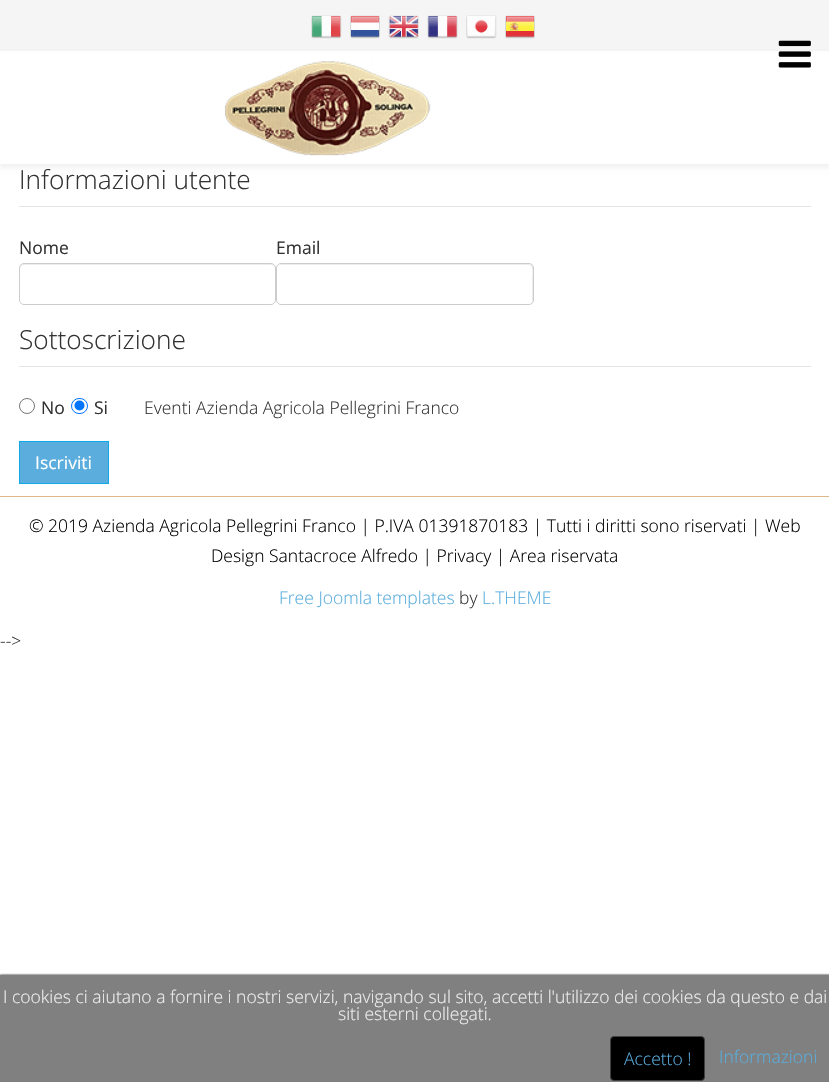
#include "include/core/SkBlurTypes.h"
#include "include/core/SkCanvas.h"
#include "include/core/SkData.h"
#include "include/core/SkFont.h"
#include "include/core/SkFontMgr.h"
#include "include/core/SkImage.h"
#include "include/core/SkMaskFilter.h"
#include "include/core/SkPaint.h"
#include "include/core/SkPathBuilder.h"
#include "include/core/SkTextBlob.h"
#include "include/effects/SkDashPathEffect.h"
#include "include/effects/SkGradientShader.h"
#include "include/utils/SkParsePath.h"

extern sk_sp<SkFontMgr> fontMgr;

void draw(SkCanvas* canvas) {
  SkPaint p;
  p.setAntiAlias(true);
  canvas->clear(SK_ColorWHITE);
  p.setColor(SkColorSetRGB(245, 245, 245));
  canvas->drawRect(SkRect::MakeLTRB(0, 0, 829, 51), p);
  canvas->drawImageRect(SkImages::DeferredFromEncodedData(SkData::MakeFromFileName("images/1.png")), SkRect::MakeLTRB(311, 15, 342, 39), SkSamplingOptions());
  canvas->drawImageRect(SkImages::DeferredFromEncodedData(SkData::MakeFromFileName("images/2.png")), SkRect::MakeLTRB(350, 15, 380, 39), SkSamplingOptions());
  canvas->drawImageRect(SkImages::DeferredFromEncodedData(SkData::MakeFromFileName("images/3.png")), SkRect::MakeLTRB(388, 15, 419, 39), SkSamplingOptions());
  canvas->drawImageRect(SkImages::DeferredFromEncodedData(SkData::MakeFromFileName("images/4.png")), SkRect::MakeLTRB(427, 15, 458, 39), SkSamplingOptions());
  canvas->drawImageRect(SkImages::DeferredFromEncodedData(SkData::MakeFromFileName("images/5.png")), SkRect::MakeLTRB(466, 15, 497, 39), SkSamplingOptions());
  canvas->drawImageRect(SkImages::DeferredFromEncodedData(SkData::MakeFromFileName("images/6.png")), SkRect::MakeLTRB(505, 15, 535, 39), SkSamplingOptions());
  p.setColor(SkColorSetARGB(13, 0, 0, 0));
  p.setMaskFilter(SkMaskFilter::MakeBlur(kNormal_SkBlurStyle, 2));
  canvas->drawRect(SkRect::MakeLTRB(0, 55, 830, 168), p);
  p.setMaskFilter(nullptr);
  p.setColor(SK_ColorWHITE);
  canvas->drawRect(SkRect::MakeLTRB(0, 53, 829, 164), p);
  canvas->drawImageRect(SkImages::DeferredFromEncodedData(SkData::MakeFromFileName("images/7.png")), SkRect::MakeLTRB(778, 40, 811, 68), SkSamplingOptions());
  canvas->drawImageRect(SkImages::DeferredFromEncodedData(SkData::MakeFromFileName("images/8.png")), SkRect::MakeLTRB(224, 61, 431, 156), SkSamplingOptions());
  p.setColor(SkColorSetRGB(229, 229, 229));
  canvas->drawRect(SkRect::MakeLTRB(19, 206, 811, 207), p);
  p.setColor(SkColorSetRGB(236, 236, 236));
  canvas->drawPath(SkPathBuilder().moveTo(24, 265).lineTo(271, 265).cubicTo(273, 265, 275, 267, 275, 269).lineTo(275, 268).cubicTo(275, 266, 273, 264, 271, 264).lineTo(24, 264).cubicTo(22, 264, 20, 266, 20, 268).lineTo(20, 269).cubicTo(20, 267, 22, 265, 24, 265).close().detach(), p);
  p.setStyle(SkPaint::kStroke_Style);
  p.setStrokeWidth(1);
  p.setColor(SkColorSetRGB(204, 204, 204));
  canvas->drawRoundRect(SkRect::MakeLTRB(19.5f, 263.5f, 275.5f, 304.5f), 4.5f, 4.5f, p);
  p.setStyle(SkPaint::kFill_Style);
  p.setColor(SkColorSetRGB(236, 236, 236));
  canvas->drawPath(SkPathBuilder().moveTo(281, 265).lineTo(529, 265).cubicTo(534, 265, 532, 278, 532, 280).lineTo(532, 303).cubicTo(532, 302, 533, 301, 533, 300).lineTo(533, 268).cubicTo(533, 266, 531, 264, 529, 264).lineTo(282, 264).cubicTo(280, 264, 278, 266, 278, 268).lineTo(278, 269).cubicTo(278, 267, 279, 265, 281, 265).close().detach(), p);
  p.setStyle(SkPaint::kStroke_Style);
  p.setColor(SkColorSetRGB(204, 204, 204));
  canvas->drawRoundRect(SkRect::MakeLTRB(276.5f, 263.5f, 533.5f, 304.5f), 4.5f, 4.5f, p);
  p.setStyle(SkPaint::kFill_Style);
  p.setColor(SkColorSetRGB(229, 229, 229));
  canvas->drawRect(SkRect::MakeLTRB(19, 366, 811, 367), p);
  p.setStyle(SkPaint::kStroke_Style);
  p.setColor(SkColorSetRGB(118, 118, 118));
  canvas->drawCircle(27, 406, 7.5f, p);
  p.setColor(SkColorSetRGB(0, 117, 255));
  canvas->drawRoundRect(SkRect::MakeLTRB(71.5f, 398.5f, 87.5f, 413.5f), 7.5f, 7.5f, p);
  p.setStyle(SkPaint::kFill_Style);
  canvas->drawCircle(79.5f, 405.5f, 5, p);
  p.setColor(SkColorSetRGB(90, 173, 221));
  canvas->drawRect(SkRect::MakeLTRB(19.5f, 441.5f, 108.5f, 483.5f), p);
  p.setStyle(SkPaint::kStroke_Style);
  p.setColor(SkColorSetRGB(15, 170, 228));
  canvas->drawRect(SkRect::MakeLTRB(19.5f, 441.5f, 108.5f, 483.5f), p);
  p.setStyle(SkPaint::kFill_Style);
  p.setColor(SkColorSetRGB(222, 184, 135));
  canvas->drawRect(SkRect::MakeLTRB(0, 496, 829, 497), p);
  p.setColor(SK_ColorBLACK);
  p.setMaskFilter(SkMaskFilter::MakeBlur(kNormal_SkBlurStyle, 1));
  canvas->drawRect(SkRect::MakeLTRB(0, 975, 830, 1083), p);
  p.setMaskFilter(nullptr);
  p.setColor(SkColorSetRGB(128, 128, 128));
  canvas->drawRect(SkRect::MakeLTRB(0, 975, 829, 1082), p);
  p.setColor(SK_ColorBLACK);
  canvas->drawRoundRect(SkRect::MakeLTRB(610.5f, 1036.5f, 704.5f, 1080.5f), 3.5f, 3.5f, p);
  p.setStyle(SkPaint::kStroke_Style);
  p.setColor(SkColorSetRGB(64, 64, 64));
  canvas->drawRoundRect(SkRect::MakeLTRB(610.5f, 1036.5f, 704.5f, 1080.5f), 3.5f, 3.5f, p);
  SkFont font1(fontMgr->matchFamilyStyle("Open Sans", SkFontStyle(300, SkFontStyle::kNormal_Width, SkFontStyle::kUpright_Slant)), 26.25f);
  font1.setSubpixel(true);
  p.setStyle(SkPaint::kFill_Style);
  p.setColor(SkColorSetRGB(51, 51, 51));
  canvas->drawString("Informazioni utente", 19, 189, font1, p);
  SkFont font2(fontMgr->matchFamilyStyle("Open Sans", SkFontStyle::Normal()), 17.5f);
  font2.setSubpixel(true);
  canvas->drawString("Nome", 19, 254, font2, p);
  canvas->drawString("Email", 276, 254, font2, p);
  canvas->drawString("Sottoscrizione", 19, 349, font1, p);
  canvas->drawString("No", 41, 414, font2, p);
  canvas->drawString("Si", 94, 414, font2, p);
  SkFont font3(fontMgr->matchFamilyStyle("Open Sans", SkFontStyle(300, SkFontStyle::kNormal_Width, SkFontStyle::kUpright_Slant)), 17.5f);
  font3.setSubpixel(true);
  canvas->drawString("Eventi Azienda Agricola Pellegrini Franco", 144, 414, font3, p);
  p.setColor(SK_ColorWHITE);
  canvas->drawString("Iscriviti", 35, 469, font2, p);
  p.setColor(SK_ColorBLACK);
  canvas->drawString("© 2019 Azienda Agricola Pellegrini Franco | P.IVA 01391870183 | Tutti i diritti sono riservati | Web", 29, 532, font3, p);
  canvas->drawString("Design Santacroce Alfredo | Privacy | Area riservata", 211, 562, font3, p);
  p.setColor(SkColorSetRGB(90, 173, 221));
  canvas->drawString("Free Joomla templates", 279, 604, font3, p);
  p.setColor(SkColorSetRGB(51, 51, 51));
  canvas->drawString("by", 459, 604, font3, p);
  p.setColor(SkColorSetRGB(90, 173, 221));
  canvas->drawString("L.THEME", 482, 604, font3, p);
  p.setColor(SkColorSetRGB(51, 51, 51));
  canvas->drawString("-->", 0, 647, font3, p);
  p.setColor(SkColorSetRGB(238, 238, 238));
  canvas->drawString("I cookies ci aiutano a fornire i nostri servizi, navigando sul sito, accetti l'utilizzo dei cookies da questo e dai", 3, 1003, font3, p);
  canvas->drawString("siti esterni collegati.", 338, 1020, font3, p);
  p.setColor(SkColorSetRGB(90, 173, 221));
  canvas->drawString("Accetto !", 624, 1065, font3, p);
  canvas->drawString("Informazioni", 719, 1063, font3, p);
}
